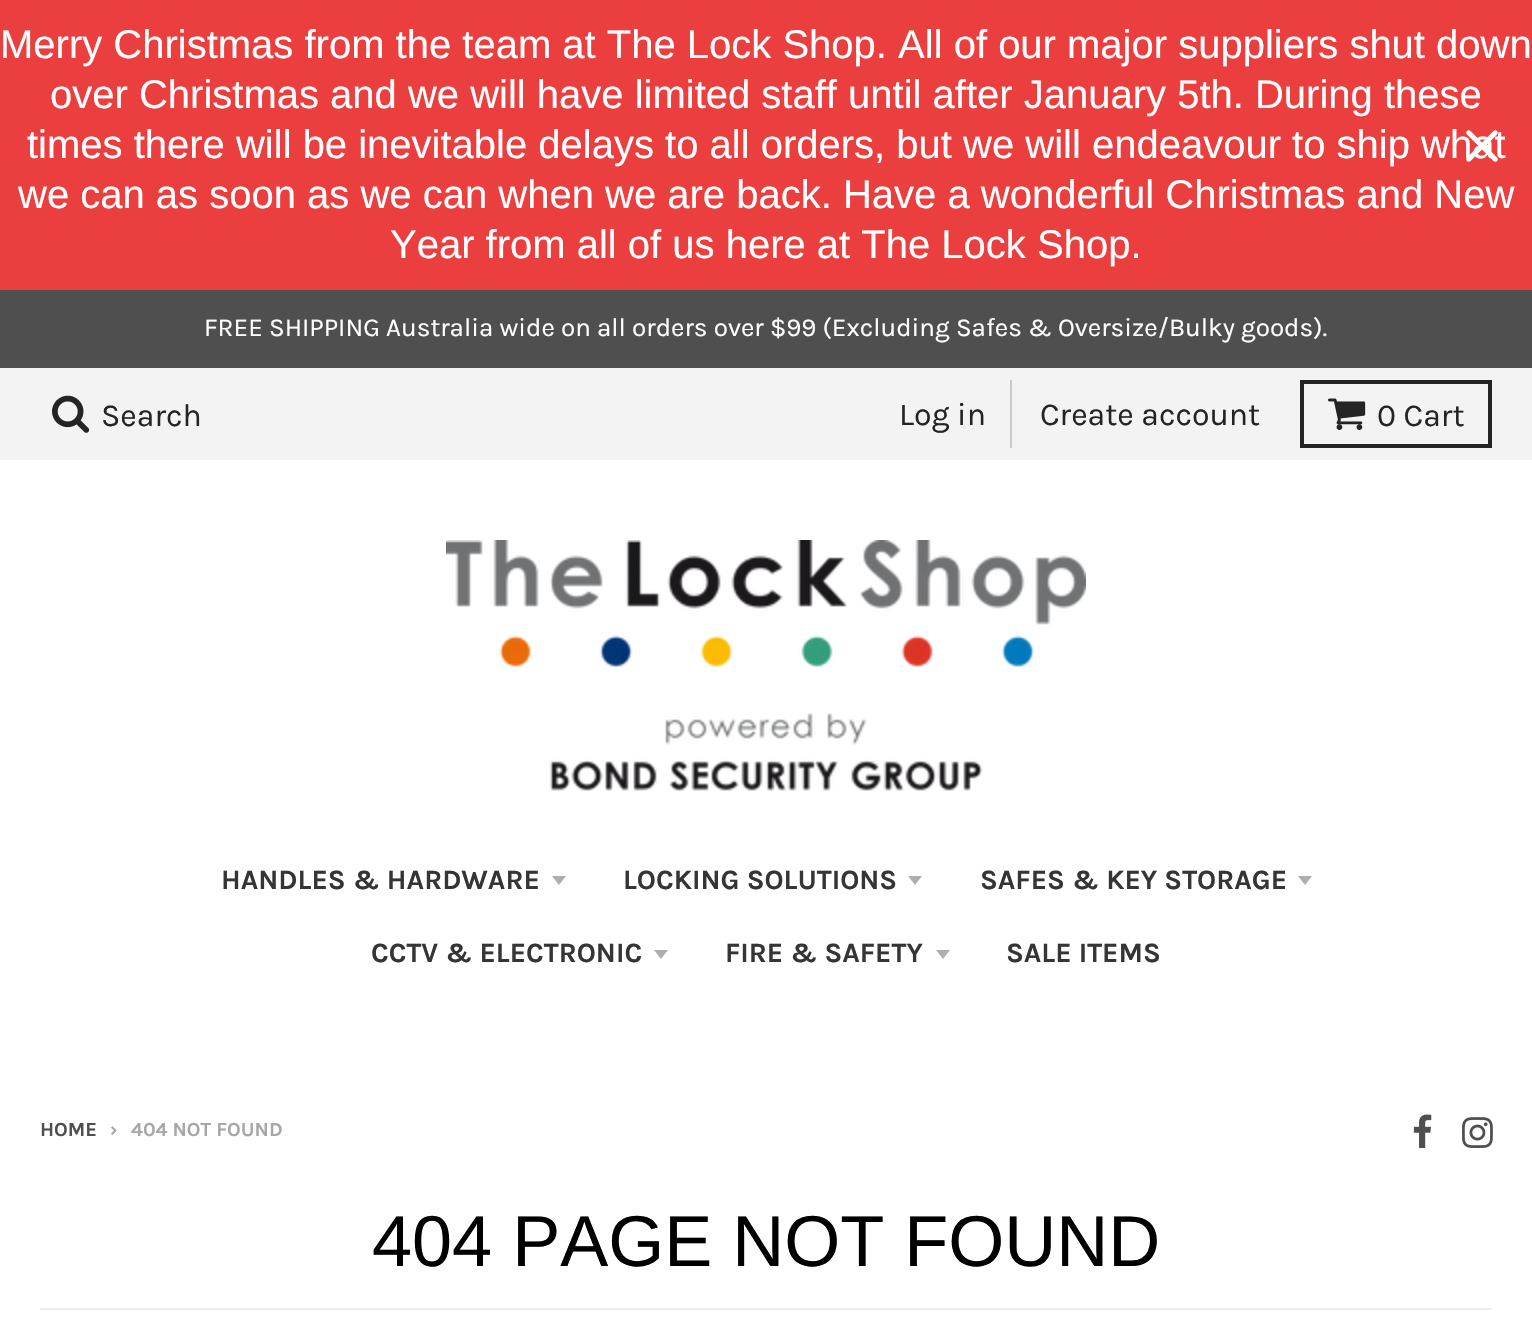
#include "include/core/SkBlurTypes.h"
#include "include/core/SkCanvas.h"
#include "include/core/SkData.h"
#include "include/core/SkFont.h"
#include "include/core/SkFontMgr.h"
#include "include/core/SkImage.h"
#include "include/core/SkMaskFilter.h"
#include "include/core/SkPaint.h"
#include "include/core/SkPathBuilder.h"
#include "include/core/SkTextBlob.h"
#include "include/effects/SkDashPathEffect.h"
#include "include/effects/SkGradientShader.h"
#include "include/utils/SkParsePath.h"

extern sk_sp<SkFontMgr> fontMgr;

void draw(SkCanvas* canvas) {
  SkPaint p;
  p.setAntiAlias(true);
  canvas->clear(SK_ColorWHITE);
  p.setColor(SkColorSetRGB(235, 62, 62));
  canvas->drawRect(SkRect::MakeLTRB(0, 0, 1532, 290), p);
  p.setColor(SkColorSetRGB(79, 79, 79));
  canvas->drawRect(SkRect::MakeLTRB(0, 290, 1532, 368), p);
  p.setColor(SkColorSetRGB(243, 243, 243));
  canvas->drawRect(SkRect::MakeLTRB(0, 368, 1532, 460), p);
  canvas->drawImageRect(SkImages::DeferredFromEncodedData(SkData::MakeFromFileName("images/2.png")), SkRect::MakeLTRB(52, 395, 90, 433), SkSamplingOptions());
  p.setColor(SkColorSetRGB(201, 201, 201));
  canvas->drawRect(SkRect::MakeLTRB(1010, 380, 1012, 448), p);
  p.setStyle(SkPaint::kStroke_Style);
  p.setStrokeWidth(4);
  p.setColor(SkColorSetRGB(36, 36, 36));
  canvas->drawRect(SkRect::MakeLTRB(1302, 382, 1490, 446), p);
  canvas->drawImageRect(SkImages::DeferredFromEncodedData(SkData::MakeFromFileName("images/3.png")), SkRect::MakeLTRB(1328, 398, 1366, 430), SkSamplingOptions());
  canvas->drawImageRect(SkImages::DeferredFromEncodedData(SkData::MakeFromFileName("images/4.png")), SkRect::MakeLTRB(446, 540, 1086, 791), SkSamplingOptions());
  p.setStyle(SkPaint::kFill_Style);
  p.setColor(SkColorSetRGB(174, 174, 174));
  canvas->drawPath(SkPathBuilder().moveTo(552, 876).lineTo(559, 885).lineTo(566, 876).close().detach(), p);
  canvas->drawPath(SkPathBuilder().moveTo(908, 876).lineTo(915, 885).lineTo(922, 876).close().detach(), p);
  canvas->drawPath(SkPathBuilder().moveTo(1298, 876).lineTo(1305, 885).lineTo(1312, 876).close().detach(), p);
  canvas->drawPath(SkPathBuilder().moveTo(654, 950).lineTo(661, 959).lineTo(668, 950).close().detach(), p);
  canvas->drawPath(SkPathBuilder().moveTo(936, 950).lineTo(943, 959).lineTo(950, 950).close().detach(), p);
  canvas->drawImageRect(SkImages::DeferredFromEncodedData(SkData::MakeFromFileName("images/5.png")), SkRect::MakeLTRB(1413, 1114, 1432, 1148), SkSamplingOptions());
  canvas->drawImageRect(SkImages::DeferredFromEncodedData(SkData::MakeFromFileName("images/6.png")), SkRect::MakeLTRB(1462, 1117, 1493, 1148), SkSamplingOptions());
  p.setColor(SkColorSetRGB(237, 237, 237));
  canvas->drawRect(SkRect::MakeLTRB(40, 1308, 1492, 1310), p);
  SkFont font1(fontMgr->matchFamilyStyle("Liberation Sans", SkFontStyle::Normal()), 40);
  font1.setSubpixel(true);
  p.setColor(SK_ColorWHITE);
  canvas->drawString("Merry Christmas from the team at The Lock Shop. All of our major suppliers shut down", 0, 58, font1, p);
  canvas->drawString("over Christmas and we will have limited staff until after January 5th. During these", 50, 108, font1, p);
  canvas->drawString("times there will be inevitable delays to all orders, but we will endeavour to ship what", 27, 158, font1, p);
  canvas->drawString("we can as soon as we can when we are back. Have a wonderful Christmas and New", 18, 208, font1, p);
  canvas->drawString("Year from all of us here at The Lock Shop.", 390, 258, font1, p);
  canvas->drawImageRect(SkImages::DeferredFromEncodedData(SkData::MakeFromFileName("images/1.png")), SkRect::MakeLTRB(1466, 130, 1498, 162), SkSamplingOptions());
  SkFont font2(fontMgr->matchFamilyStyle("Karla", SkFontStyle::Normal()), 26);
  font2.setSubpixel(true);
  canvas->drawString("FREE SHIPPING Australia wide on all orders over $99 (Excluding Safes & Oversize/Bulky goods).", 204, 336, font2, p);
  SkFont font3(fontMgr->matchFamilyStyle("Karla", SkFontStyle::Normal()), 32);
  font3.setSubpixel(true);
  p.setColor(SkColorSetRGB(36, 36, 36));
  canvas->drawString("Search", 101, 426, font3, p);
  canvas->drawString("Log in", 899, 425, font3, p);
  canvas->drawString("Create account", 1040, 425, font3, p);
  canvas->drawString("0 Cart", 1377, 426, font3, p);
  SkFont font4(fontMgr->matchFamilyStyle("Karla", SkFontStyle::Bold()), 28);
  font4.setSubpixel(true);
  p.setColor(SkColorSetRGB(53, 53, 53));
  canvas->drawString("HANDLES & HARDWARE", 221, 889, font4, p);
  canvas->drawString("LOCKING SOLUTIONS", 623, 889, font4, p);
  canvas->drawString("SAFES & KEY STORAGE", 980, 889, font4, p);
  canvas->drawString("CCTV & ELECTRONIC", 371, 962, font4, p);
  canvas->drawString("FIRE & SAFETY", 725, 962, font4, p);
  canvas->drawString("SALE ITEMS", 1006, 962, font4, p);
  SkFont font5(fontMgr->matchFamilyStyle("Karla", SkFontStyle::Bold()), 20);
  font5.setSubpixel(true);
  p.setColor(SkColorSetRGB(79, 79, 79));
  canvas->drawString("HOME", 40, 1136, font5, p);
  p.setColor(SkColorSetRGB(167, 167, 167));
  canvas->drawString("›", 110, 1136, font5, p);
  canvas->drawString("404 NOT FOUND", 131, 1136, font5, p);
  SkFont font6(fontMgr->matchFamilyStyle("Liberation Sans", SkFontStyle::Normal()), 72);
  font6.setSubpixel(true);
  p.setColor(SK_ColorBLACK);
  canvas->drawString("404 PAGE NOT FOUND", 372, 1266, font6, p);
}
